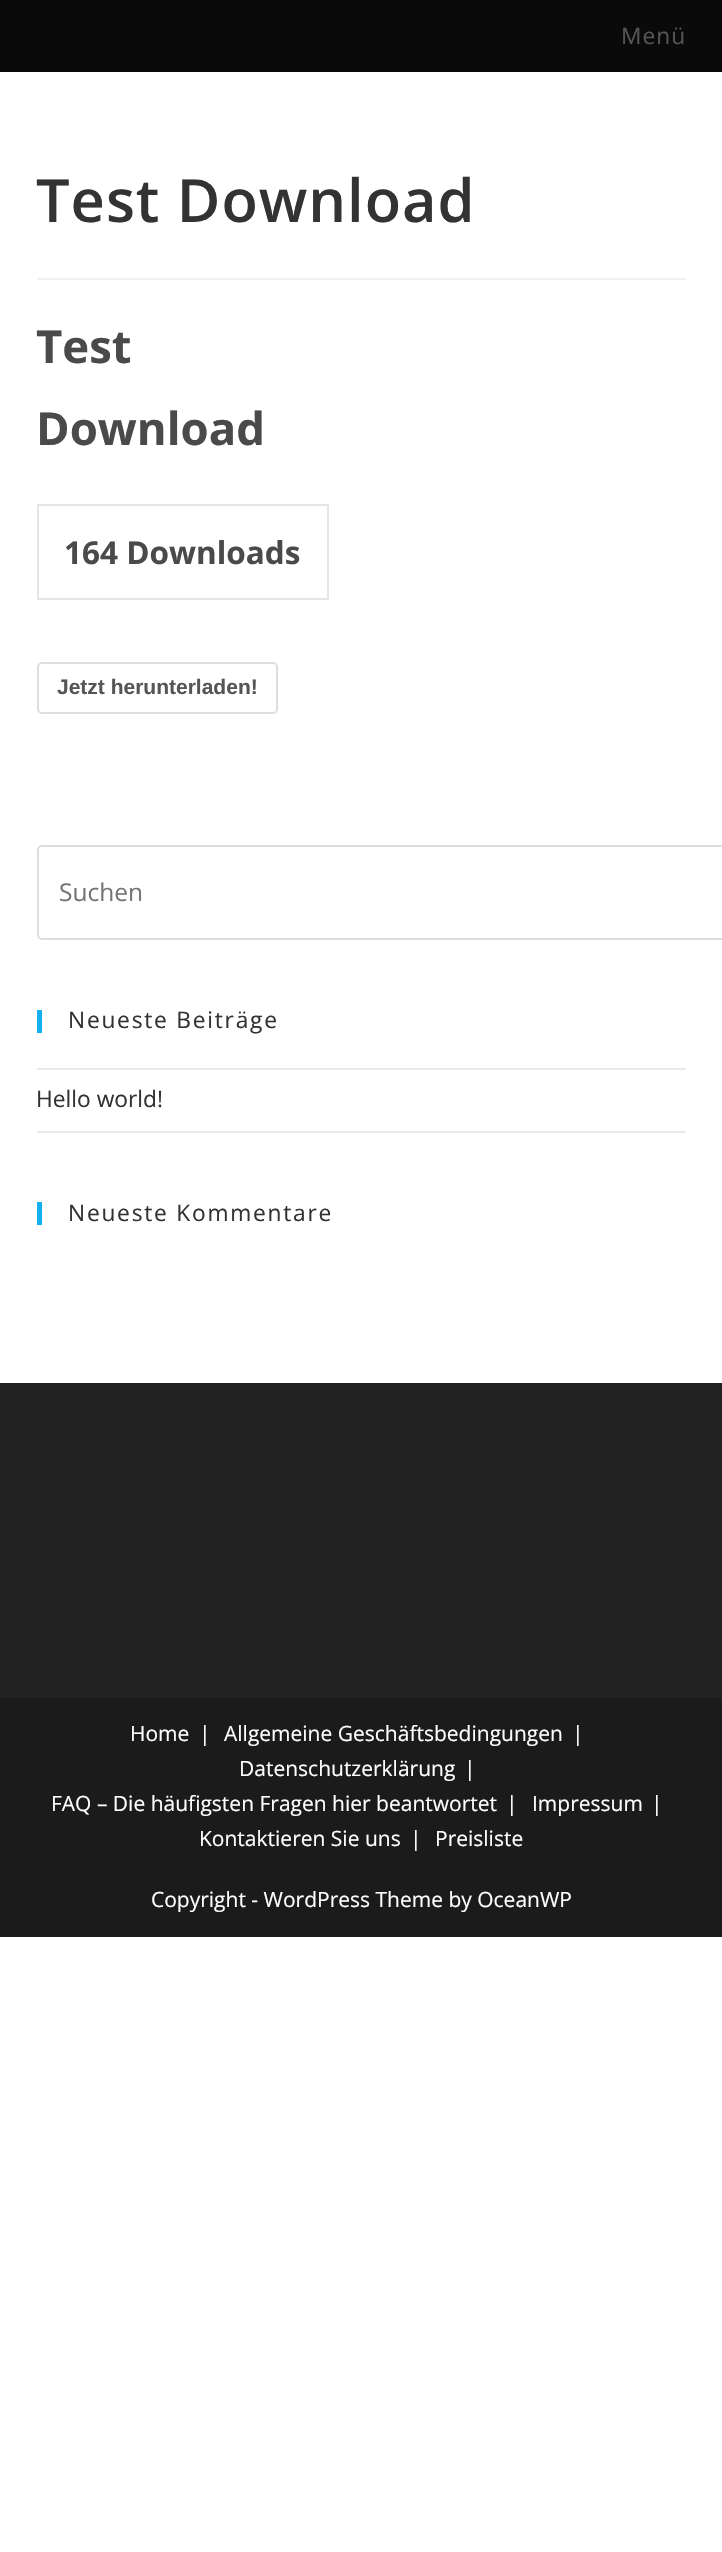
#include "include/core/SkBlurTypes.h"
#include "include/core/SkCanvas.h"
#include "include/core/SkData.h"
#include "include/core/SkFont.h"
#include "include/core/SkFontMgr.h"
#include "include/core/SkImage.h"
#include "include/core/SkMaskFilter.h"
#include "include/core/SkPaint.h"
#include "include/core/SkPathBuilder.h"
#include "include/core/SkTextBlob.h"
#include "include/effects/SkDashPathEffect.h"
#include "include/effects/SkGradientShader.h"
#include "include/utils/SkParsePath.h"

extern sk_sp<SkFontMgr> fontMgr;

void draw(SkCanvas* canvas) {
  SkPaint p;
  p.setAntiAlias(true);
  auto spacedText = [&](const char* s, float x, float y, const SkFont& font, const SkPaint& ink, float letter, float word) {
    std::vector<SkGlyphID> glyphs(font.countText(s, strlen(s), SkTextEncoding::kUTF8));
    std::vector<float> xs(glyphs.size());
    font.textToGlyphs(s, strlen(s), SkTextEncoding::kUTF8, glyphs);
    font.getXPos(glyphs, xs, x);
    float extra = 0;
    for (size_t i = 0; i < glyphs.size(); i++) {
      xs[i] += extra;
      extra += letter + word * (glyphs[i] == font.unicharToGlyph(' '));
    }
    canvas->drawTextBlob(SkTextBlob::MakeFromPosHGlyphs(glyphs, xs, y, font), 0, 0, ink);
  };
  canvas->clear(SK_ColorWHITE);
  p.setColor(SkColorSetRGB(10, 10, 10));
  canvas->drawRect(SkRect::MakeLTRB(0, 0, 722, 72), p);
  p.setColor(SkColorSetRGB(241, 241, 241));
  canvas->drawRect(SkRect::MakeLTRB(37, 278, 686, 280), p);
  p.setStyle(SkPaint::kStroke_Style);
  p.setStrokeWidth(2);
  p.setColor(SkColorSetRGB(232, 228, 227));
  canvas->drawRect(SkRect::MakeLTRB(38, 505, 328, 599), p);
  p.setColor(SkColorSetRGB(222, 222, 222));
  canvas->drawRoundRect(SkRect::MakeLTRB(38, 663, 277, 713), 4, 4, p);
  p.setColor(SkColorSetRGB(221, 221, 221));
  canvas->drawRoundRect(SkRect::MakeLTRB(38, 846, 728, 939), 4, 4, p);
  p.setStyle(SkPaint::kFill_Style);
  p.setColor(SkColorSetRGB(19, 175, 240));
  canvas->drawRect(SkRect::MakeLTRB(37, 1010, 42, 1033), p);
  p.setColor(SkColorSetRGB(233, 233, 233));
  canvas->drawRect(SkRect::MakeLTRB(37, 1068, 686, 1070), p);
  canvas->drawRect(SkRect::MakeLTRB(37, 1131, 686, 1133), p);
  p.setColor(SkColorSetRGB(19, 175, 240));
  canvas->drawRect(SkRect::MakeLTRB(37, 1202, 42, 1225), p);
  p.setColor(SkColorSetRGB(34, 34, 34));
  canvas->drawRect(SkRect::MakeLTRB(0, 1383, 722, 1698), p);
  p.setColor(SkColorSetRGB(27, 27, 27));
  canvas->drawRect(SkRect::MakeLTRB(0, 1698, 722, 1937), p);
  SkFont font1(fontMgr->matchFamilyStyle("Open Sans", SkFontStyle::Normal()), 22.75f);
  font1.setSubpixel(true);
  p.setColor(SkColorSetRGB(85, 85, 85));
  spacedText("Menü", 621, 44, font1, p, 1, 0);
  SkFont font2(fontMgr->matchFamilyStyle("Open Sans", SkFontStyle(600, SkFontStyle::kNormal_Width, SkFontStyle::kUpright_Slant)), 59.5f);
  font2.setSubpixel(true);
  p.setColor(SkColorSetRGB(51, 51, 51));
  spacedText("Test Download", 36, 222, font2, p, 1, 0);
  SkFont font3(fontMgr->matchFamilyStyle("Open Sans", SkFontStyle::Bold()), 45.5f);
  font3.setSubpixel(true);
  p.setColor(SkColorSetRGB(74, 74, 74));
  canvas->drawString("Test", 36, 363, font3, p);
  canvas->drawString("Download", 36, 445, font3, p);
  SkFont font4(fontMgr->matchFamilyStyle("Open Sans", SkFontStyle::Bold()), 31.5f);
  font4.setSubpixel(true);
  canvas->drawString("164 Downloads", 64, 564, font4, p);
  SkFont font5(fontMgr->matchFamilyStyle("Liberation Sans", SkFontStyle::Bold()), 21);
  font5.setSubpixel(true);
  p.setColor(SkColorSetRGB(85, 85, 85));
  canvas->drawString("Jetzt herunterladen!", 57, 694, font5, p);
  SkFont font6(fontMgr->matchFamilyStyle("Open Sans", SkFontStyle::Normal()), 24.5f);
  font6.setSubpixel(true);
  p.setColor(SkColorSetRGB(117, 117, 117));
  canvas->drawString("Suchen", 59, 901, font6, p);
  p.setColor(SkColorSetRGB(51, 51, 51));
  spacedText("Neueste Beiträge", 68, 1028, font1, p, 1.75f, 0);
  canvas->drawString("Hello world!", 36, 1107, font1, p);
  spacedText("Neueste Kommentare", 68, 1221, font1, p, 1.75f, 0);
  SkFont font7(fontMgr->matchFamilyStyle("Open Sans", SkFontStyle::Normal()), 21);
  font7.setSubpixel(true);
  p.setColor(SK_ColorWHITE);
  canvas->drawString("Home", 130, 1741, font7, p);
  canvas->drawString("|", 199, 1741, font7, p);
  canvas->drawString("Allgemeine Geschäftsbedingungen", 224, 1741, font7, p);
  canvas->drawString("|", 572, 1741, font7, p);
  canvas->drawString("Datenschutzerklärung", 239, 1776, font7, p);
  canvas->drawString("|", 464, 1776, font7, p);
  canvas->drawString("FAQ – Die häufigsten Fragen hier beantwortet", 51, 1811, font7, p);
  canvas->drawString("|", 506, 1811, font7, p);
  canvas->drawString("Impressum", 532, 1811, font7, p);
  canvas->drawString("|", 651, 1811, font7, p);
  canvas->drawString("Kontaktieren Sie uns", 199, 1846, font7, p);
  canvas->drawString("|", 410, 1846, font7, p);
  canvas->drawString("Preisliste", 435, 1846, font7, p);
  canvas->drawString("Copyright - WordPress Theme by OceanWP", 151, 1907, font7, p);
}
